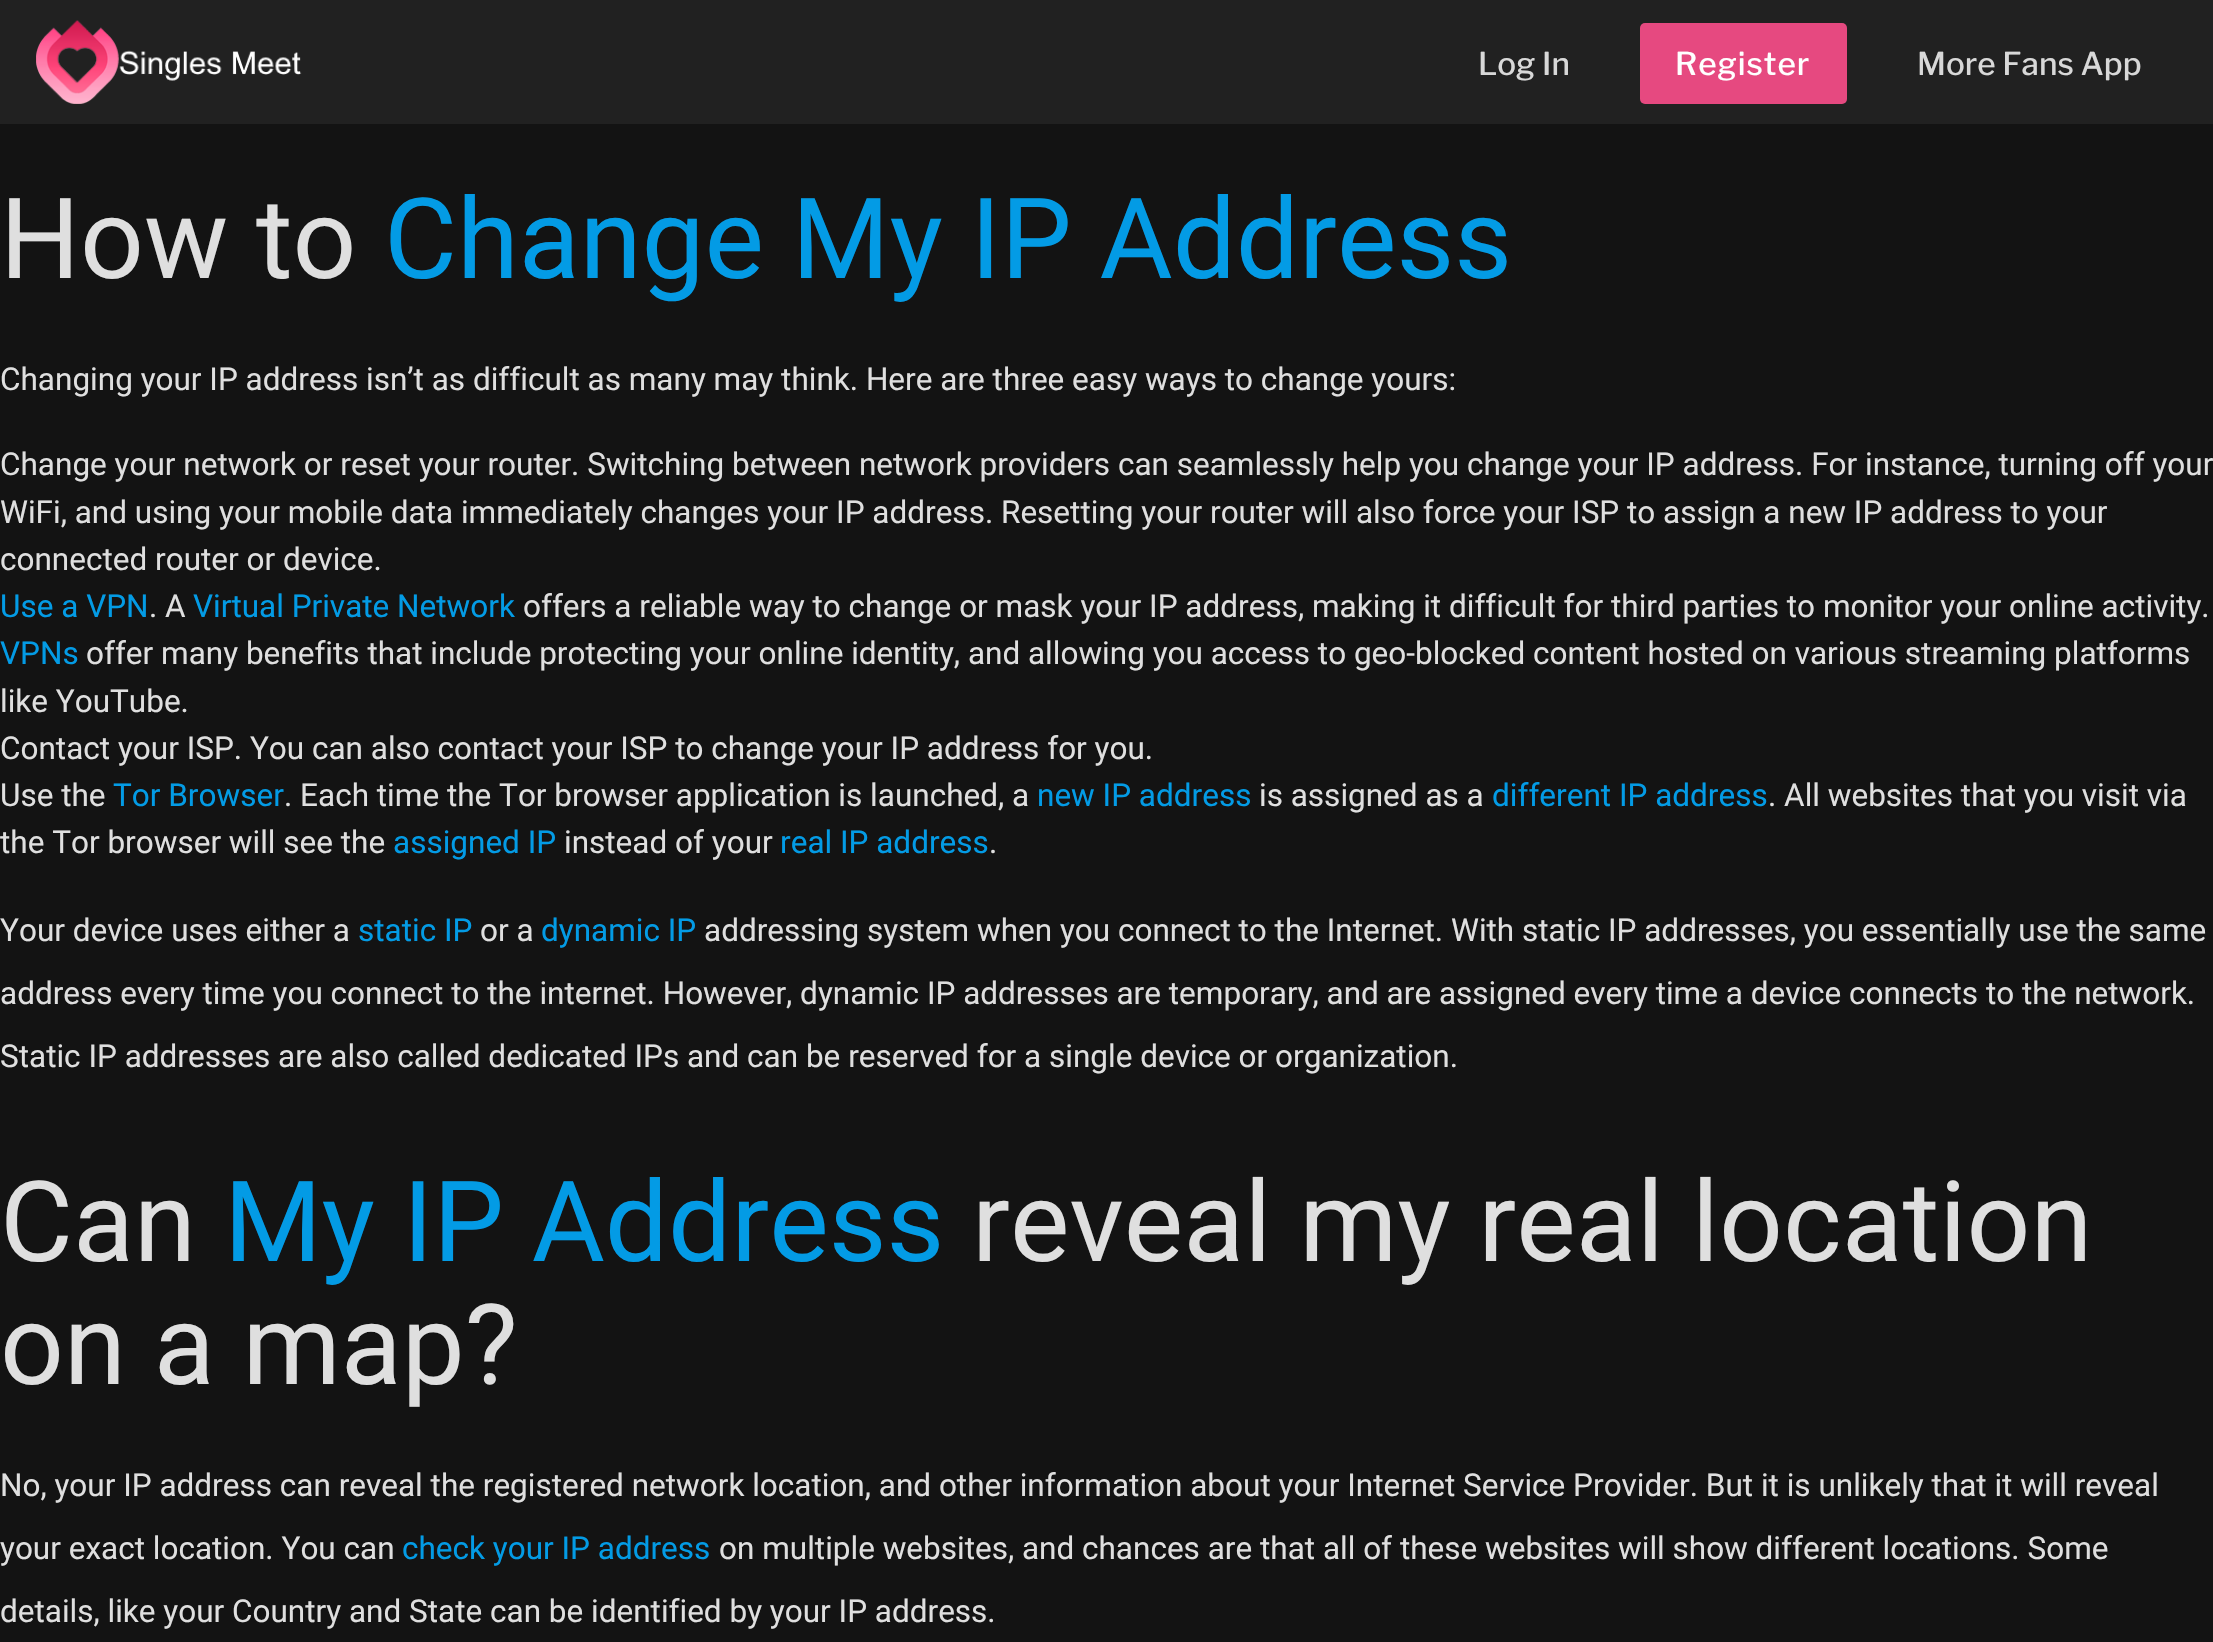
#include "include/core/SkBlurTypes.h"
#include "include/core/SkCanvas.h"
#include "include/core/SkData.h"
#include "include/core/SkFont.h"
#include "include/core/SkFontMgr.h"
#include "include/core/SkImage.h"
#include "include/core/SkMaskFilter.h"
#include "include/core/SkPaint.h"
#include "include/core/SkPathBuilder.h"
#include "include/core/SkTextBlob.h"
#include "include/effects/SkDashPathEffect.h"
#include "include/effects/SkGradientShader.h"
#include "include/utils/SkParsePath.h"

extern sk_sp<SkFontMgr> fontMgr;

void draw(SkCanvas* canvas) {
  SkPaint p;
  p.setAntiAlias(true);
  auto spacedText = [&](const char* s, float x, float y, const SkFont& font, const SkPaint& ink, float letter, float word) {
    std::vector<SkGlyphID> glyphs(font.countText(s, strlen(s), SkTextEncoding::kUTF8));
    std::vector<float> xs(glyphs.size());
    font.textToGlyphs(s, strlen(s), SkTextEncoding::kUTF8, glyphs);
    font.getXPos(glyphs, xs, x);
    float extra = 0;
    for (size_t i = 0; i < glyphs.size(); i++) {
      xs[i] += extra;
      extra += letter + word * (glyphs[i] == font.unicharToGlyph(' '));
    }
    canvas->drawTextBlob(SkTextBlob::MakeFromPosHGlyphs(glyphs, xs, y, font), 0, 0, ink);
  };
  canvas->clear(SkColorSetRGB(19, 19, 19));
  p.setColor(SkColorSetRGB(33, 33, 33));
  canvas->drawRect(SkRect::MakeLTRB(0, 0, 2213, 124), p);
  canvas->drawImageRect(SkImages::DeferredFromEncodedData(SkData::MakeFromFileName("images/1.png")), SkRect::MakeLTRB(36, 20, 302, 104), SkSamplingOptions());
  p.setColor(SkColorSetRGB(230, 73, 128));
  canvas->drawRoundRect(SkRect::MakeLTRB(1640, 23, 1847, 104), 5, 5, p);
  SkFont font1(fontMgr->matchFamilyStyle("Libre Franklin", SkFontStyle(500, SkFontStyle::kNormal_Width, SkFontStyle::kUpright_Slant)), 31.5f);
  font1.setSubpixel(true);
  p.setColor(SkColorSetRGB(216, 216, 216));
  canvas->drawString("Log In", 1478, 75, font1, p);
  p.setColor(SK_ColorWHITE);
  spacedText("Register", 1675, 75, font1, p, 1, 0);
  p.setColor(SkColorSetRGB(216, 216, 216));
  canvas->drawString("More Fans App", 1917, 75, font1, p);
  SkFont font2(fontMgr->matchFamilyStyle("Roboto", SkFontStyle::Normal()), 112.1f);
  font2.setSubpixel(true);
  p.setColor(SkColorSetRGB(223, 223, 223));
  canvas->drawString("How to", 0, 278, font2, p);
  p.setColor(SkColorSetRGB(3, 155, 229));
  canvas->drawString("Change My IP Address", 384, 278, font2, p);
  SkFont font3(fontMgr->matchFamilyStyle("Roboto", SkFontStyle::Normal()), 31.5f);
  font3.setSubpixel(true);
  p.setColor(SkColorSetRGB(223, 223, 223));
  canvas->drawString("Changing your IP address isn’t as difficult as many may think. Here are three easy ways to change yours:", 0, 390, font3, p);
  canvas->drawString("Change your network or reset your router. Switching between network providers can seamlessly help you change your IP address. For instance, turning off your", 0, 475, font3, p);
  canvas->drawString("WiFi, and using your mobile data immediately changes your IP address. Resetting your router will also force your ISP to assign a new IP address to your", 0, 523, font3, p);
  canvas->drawString("connected router or device.", 0, 570, font3, p);
  p.setColor(SkColorSetRGB(3, 155, 229));
  canvas->drawString("Use a VPN", 0, 617, font3, p);
  p.setColor(SkColorSetRGB(223, 223, 223));
  canvas->drawString(". A", 149, 617, font3, p);
  p.setColor(SkColorSetRGB(3, 155, 229));
  canvas->drawString("Virtual Private Network", 193, 617, font3, p);
  p.setColor(SkColorSetRGB(223, 223, 223));
  canvas->drawString("offers a reliable way to change or mask your IP address, making it difficult for third parties to monitor your online activity.", 523, 617, font3, p);
  p.setColor(SkColorSetRGB(3, 155, 229));
  canvas->drawString("VPNs", 0, 664, font3, p);
  p.setColor(SkColorSetRGB(223, 223, 223));
  canvas->drawString("offer many benefits that include protecting your online identity, and allowing you access to geo-blocked content hosted on various streaming platforms", 86, 664, font3, p);
  canvas->drawString("like YouTube.", 0, 712, font3, p);
  canvas->drawString("Contact your ISP. You can also contact your ISP to change your IP address for you.", 0, 759, font3, p);
  canvas->drawString("Use the", 0, 806, font3, p);
  p.setColor(SkColorSetRGB(3, 155, 229));
  canvas->drawString("Tor Browser", 113, 806, font3, p);
  p.setColor(SkColorSetRGB(223, 223, 223));
  canvas->drawString(". Each time the Tor browser application is launched, a", 284, 806, font3, p);
  p.setColor(SkColorSetRGB(3, 155, 229));
  canvas->drawString("new IP address", 1037, 806, font3, p);
  p.setColor(SkColorSetRGB(223, 223, 223));
  canvas->drawString("is assigned as a", 1259, 806, font3, p);
  p.setColor(SkColorSetRGB(3, 155, 229));
  canvas->drawString("different IP address", 1492, 806, font3, p);
  p.setColor(SkColorSetRGB(223, 223, 223));
  canvas->drawString(". All websites that you visit via", 1768, 806, font3, p);
  canvas->drawString("the Tor browser will see the", 0, 853, font3, p);
  p.setColor(SkColorSetRGB(3, 155, 229));
  canvas->drawString("assigned IP", 393, 853, font3, p);
  p.setColor(SkColorSetRGB(223, 223, 223));
  canvas->drawString("instead of your", 564, 853, font3, p);
  p.setColor(SkColorSetRGB(3, 155, 229));
  canvas->drawString("real IP address", 780, 853, font3, p);
  p.setColor(SkColorSetRGB(223, 223, 223));
  canvas->drawString(".", 989, 853, font3, p);
  canvas->drawString("Your device uses either a", 0, 941, font3, p);
  p.setColor(SkColorSetRGB(3, 155, 229));
  canvas->drawString("static IP", 358, 941, font3, p);
  p.setColor(SkColorSetRGB(223, 223, 223));
  canvas->drawString("or a", 480, 941, font3, p);
  p.setColor(SkColorSetRGB(3, 155, 229));
  canvas->drawString("dynamic IP", 541, 941, font3, p);
  p.setColor(SkColorSetRGB(223, 223, 223));
  canvas->drawString("addressing system when you connect to the Internet. With static IP addresses, you essentially use the same", 704, 941, font3, p);
  canvas->drawString("address every time you connect to the internet. However, dynamic IP addresses are temporary, and are assigned every time a device connects to the network.", 0, 1004, font3, p);
  canvas->drawString("Static IP addresses are also called dedicated IPs and can be reserved for a single device or organization.", 0, 1067, font3, p);
  canvas->drawString("Can", 0, 1261, font2, p);
  p.setColor(SkColorSetRGB(3, 155, 229));
  canvas->drawString("My IP Address", 224, 1261, font2, p);
  p.setColor(SkColorSetRGB(223, 223, 223));
  canvas->drawString("reveal my real location", 972, 1261, font2, p);
  canvas->drawString("on a map?", 0, 1384, font2, p);
  canvas->drawString("No, your IP address can reveal the registered network location, and other information about your Internet Service Provider. But it is unlikely that it will reveal", 0, 1496, font3, p);
  canvas->drawString("your exact location. You can", 0, 1559, font3, p);
  p.setColor(SkColorSetRGB(3, 155, 229));
  canvas->drawString("check your IP address", 402, 1559, font3, p);
  p.setColor(SkColorSetRGB(223, 223, 223));
  canvas->drawString("on multiple websites, and chances are that all of these websites will show different locations. Some", 719, 1559, font3, p);
  canvas->drawString("details, like your Country and State can be identified by your IP address.", 0, 1622, font3, p);
}
